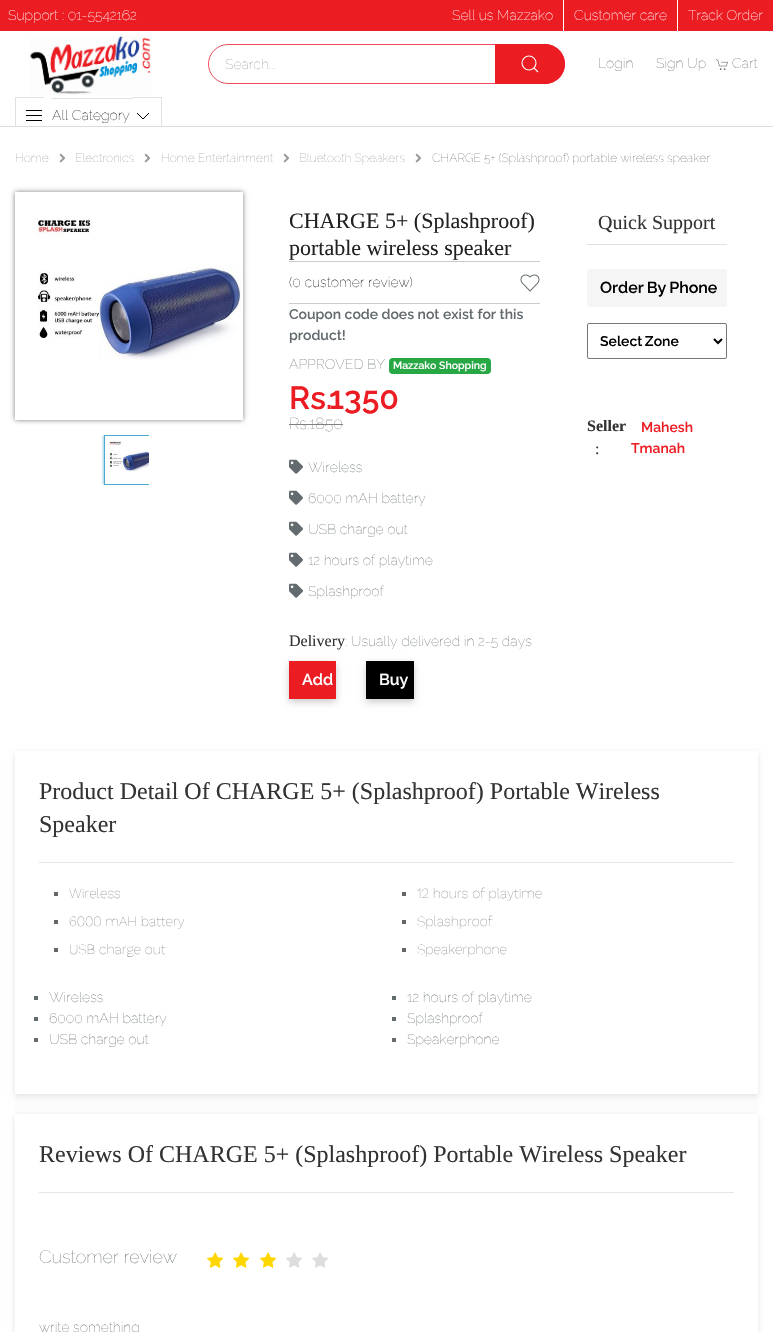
#include "include/core/SkBlurTypes.h"
#include "include/core/SkCanvas.h"
#include "include/core/SkData.h"
#include "include/core/SkFont.h"
#include "include/core/SkFontMgr.h"
#include "include/core/SkImage.h"
#include "include/core/SkMaskFilter.h"
#include "include/core/SkPaint.h"
#include "include/core/SkPathBuilder.h"
#include "include/core/SkTextBlob.h"
#include "include/effects/SkDashPathEffect.h"
#include "include/effects/SkGradientShader.h"
#include "include/utils/SkParsePath.h"

extern sk_sp<SkFontMgr> fontMgr;

void draw(SkCanvas* canvas) {
  SkPaint p;
  p.setAntiAlias(true);
  auto spacedText = [&](const char* s, float x, float y, const SkFont& font, const SkPaint& ink, float letter, float word) {
    std::vector<SkGlyphID> glyphs(font.countText(s, strlen(s), SkTextEncoding::kUTF8));
    std::vector<float> xs(glyphs.size());
    font.textToGlyphs(s, strlen(s), SkTextEncoding::kUTF8, glyphs);
    font.getXPos(glyphs, xs, x);
    float extra = 0;
    for (size_t i = 0; i < glyphs.size(); i++) {
      xs[i] += extra;
      extra += letter + word * (glyphs[i] == font.unicharToGlyph(' '));
    }
    canvas->drawTextBlob(SkTextBlob::MakeFromPosHGlyphs(glyphs, xs, y, font), 0, 0, ink);
  };
  canvas->clear(SK_ColorWHITE);
  p.setColor(SkColorSetRGB(236, 28, 35));
  canvas->drawRect(SkRect::MakeLTRB(0, 0, 773, 31), p);
  p.setColor(SK_ColorWHITE);
  canvas->drawRect(SkRect::MakeLTRB(563, 0, 564, 31), p);
  canvas->drawRect(SkRect::MakeLTRB(677, 0, 678, 31), p);
  p.setColor(SkColorSetRGB(220, 220, 220));
  canvas->drawRect(SkRect::MakeLTRB(0, 126, 773, 127), p);
  canvas->drawImageRect(SkImages::DeferredFromEncodedData(SkData::MakeFromFileName("images/1.png")), SkRect::MakeLTRB(30, 35, 151, 95), SkSamplingOptions());
  p.setStyle(SkPaint::kStroke_Style);
  p.setStrokeWidth(1);
  p.setColor(SkColorSetRGB(242, 75, 95));
  canvas->drawRoundRect(SkRect::MakeLTRB(208.5f, 44.5f, 564.5f, 83.5f), 19.5f, 19.5f, p);
  p.setStyle(SkPaint::kFill_Style);
  p.setColor(SkColorSetRGB(236, 28, 35));
  canvas->drawPath(SkPathBuilder().moveTo(495, 44).lineTo(545, 44).cubicTo(556, 44, 565, 53, 565, 64).cubicTo(565, 75, 556, 84, 545, 84).lineTo(495, 84).close().detach(), p);
  p.setStyle(SkPaint::kStroke_Style);
  p.setStrokeWidth(1.1f);
  p.setColor(SK_ColorWHITE);
  canvas->drawCircle(529, 63, 7, p);
  canvas->drawPath(SkPathBuilder().moveTo(534, 68).lineTo(538, 72).close().detach(), p);
  canvas->drawImageRect(SkImages::DeferredFromEncodedData(SkData::MakeFromFileName("images/2.png")), SkRect::MakeLTRB(716, 59, 728, 70), SkSamplingOptions());
  p.setStyle(SkPaint::kFill_Style);
  p.setColor(SkColorSetRGB(222, 226, 230));
  canvas->drawRect(SkRect::MakeLTRB(15, 97, 44, 98), p);
  canvas->drawRect(SkRect::MakeLTRB(15, 97, 16, 126), p);
  canvas->drawRect(SkRect::MakeLTRB(52, 98, 133, 99), p);
  canvas->drawRect(SkRect::MakeLTRB(133, 97, 162, 98), p);
  canvas->drawRect(SkRect::MakeLTRB(161, 97, 162, 126), p);
  p.setColor(SK_ColorBLACK);
  canvas->drawRect(SkRect::MakeLTRB(26, 110, 42, 111), p);
  canvas->drawRect(SkRect::MakeLTRB(26, 115, 42, 116), p);
  canvas->drawRect(SkRect::MakeLTRB(26, 120, 42, 121), p);
  p.setStyle(SkPaint::kStroke_Style);
  p.setStrokeWidth(1);
  canvas->drawPath(SkPathBuilder().moveTo(149, 113).lineTo(143, 119).lineTo(137, 113).detach(), p);
  canvas->drawImageRect(SkImages::DeferredFromEncodedData(SkData::MakeFromFileName("images/3.png")), SkRect::MakeLTRB(59, 153, 65, 163), SkSamplingOptions());
  canvas->drawImageRect(SkImages::DeferredFromEncodedData(SkData::MakeFromFileName("images/3.png")), SkRect::MakeLTRB(144, 153, 150, 163), SkSamplingOptions());
  canvas->drawImageRect(SkImages::DeferredFromEncodedData(SkData::MakeFromFileName("images/3.png")), SkRect::MakeLTRB(283, 153, 289, 163), SkSamplingOptions());
  canvas->drawImageRect(SkImages::DeferredFromEncodedData(SkData::MakeFromFileName("images/3.png")), SkRect::MakeLTRB(415, 153, 421, 163), SkSamplingOptions());
  canvas->save();
  canvas->clipPath(SkPathBuilder(SkPathFillType::kEvenOdd).moveTo(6, 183).lineTo(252, 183).lineTo(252, 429).lineTo(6, 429).close().moveTo(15, 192).lineTo(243, 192).lineTo(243, 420).lineTo(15, 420).close().detach(), true);
  p.setStyle(SkPaint::kFill_Style);
  p.setColor(SkColorSetARGB(128, 0, 0, 0));
  p.setMaskFilter(SkMaskFilter::MakeBlur(kNormal_SkBlurStyle, 2.5f));
  canvas->drawRect(SkRect::MakeLTRB(15, 192, 243, 420), p);
  p.setMaskFilter(nullptr);
  canvas->restore();
  canvas->drawImageRect(SkImages::DeferredFromEncodedData(SkData::MakeFromFileName("images/4.png")), SkRect::MakeLTRB(33, 219, 242, 360), SkSamplingOptions());
  canvas->save();
  canvas->clipRect(SkRect::MakeLTRB(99, 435, 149, 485));
  canvas->clipRect(SkRect::MakeLTRB(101, 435, 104, 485));
  p.setColor(SkColorSetRGB(74, 169, 210));
  p.setMaskFilter(SkMaskFilter::MakeBlur(kNormal_SkBlurStyle, 1.5f));
  canvas->drawRect(SkRect::MakeLTRB(104, 435, 154, 485), p);
  p.setMaskFilter(nullptr);
  canvas->restore();
  canvas->save();
  canvas->clipRect(SkRect::MakeLTRB(99, 435, 149, 485));
  p.setStyle(SkPaint::kStroke_Style);
  p.setColor(SkColorSetRGB(74, 170, 210));
  canvas->drawRect(SkRect::MakeLTRB(104.5f, 435.5f, 153.5f, 484.5f), p);
  canvas->restore();
  canvas->drawImageRect(SkImages::DeferredFromEncodedData(SkData::MakeFromFileName("images/5.png")), SkRect::MakeLTRB(109, 441, 149, 472), SkSamplingOptions());
  p.setStyle(SkPaint::kFill_Style);
  p.setColor(SkColorSetRGB(204, 204, 204));
  canvas->drawRect(SkRect::MakeLTRB(289, 261, 540, 262), p);
  canvas->drawRect(SkRect::MakeLTRB(289, 303, 540, 304), p);
  canvas->drawImageRect(SkImages::DeferredFromEncodedData(SkData::MakeFromFileName("images/6.png")), SkRect::MakeLTRB(520, 274, 540, 292), SkSamplingOptions());
  p.setColor(SkColorSetRGB(40, 167, 69));
  canvas->drawRoundRect(SkRect::MakeLTRB(389, 358, 491, 374), 4, 4, p);
  p.setColor(SkColorSetRGB(128, 128, 128));
  canvas->drawRect(SkRect::MakeLTRB(289, 424, 343, 425), p);
  canvas->drawImageRect(SkImages::DeferredFromEncodedData(SkData::MakeFromFileName("images/7.png")), SkRect::MakeLTRB(289, 459, 303, 474), SkSamplingOptions());
  canvas->drawImageRect(SkImages::DeferredFromEncodedData(SkData::MakeFromFileName("images/7.png")), SkRect::MakeLTRB(289, 490, 303, 505), SkSamplingOptions());
  canvas->drawImageRect(SkImages::DeferredFromEncodedData(SkData::MakeFromFileName("images/7.png")), SkRect::MakeLTRB(289, 521, 303, 536), SkSamplingOptions());
  canvas->drawImageRect(SkImages::DeferredFromEncodedData(SkData::MakeFromFileName("images/7.png")), SkRect::MakeLTRB(289, 552, 303, 567), SkSamplingOptions());
  canvas->drawImageRect(SkImages::DeferredFromEncodedData(SkData::MakeFromFileName("images/7.png")), SkRect::MakeLTRB(289, 583, 303, 598), SkSamplingOptions());
  p.setColor(SkColorSetARGB(51, 0, 0, 0));
  p.setMaskFilter(SkMaskFilter::MakeBlur(kNormal_SkBlurStyle, 3.5f));
  canvas->drawRect(SkRect::MakeLTRB(289, 664, 336, 702), p);
  p.setMaskFilter(nullptr);
  p.setColor(SkColorSetRGB(236, 28, 35));
  canvas->drawRect(SkRect::MakeLTRB(289, 661, 336, 699), p);
  p.setColor(SkColorSetARGB(51, 0, 0, 0));
  p.setMaskFilter(SkMaskFilter::MakeBlur(kNormal_SkBlurStyle, 3.5f));
  canvas->drawRect(SkRect::MakeLTRB(366, 664, 414, 702), p);
  p.setMaskFilter(nullptr);
  p.setColor(SK_ColorBLACK);
  canvas->drawRect(SkRect::MakeLTRB(366, 661, 414, 699), p);
  p.setColor(SkColorSetRGB(222, 226, 230));
  canvas->drawRect(SkRect::MakeLTRB(587, 244, 727, 245), p);
  p.setColor(SkColorSetRGB(245, 245, 245));
  canvas->drawRoundRect(SkRect::MakeLTRB(587, 269, 727, 307), 4, 4, p);
  p.setStyle(SkPaint::kStroke_Style);
  p.setColor(SkColorSetRGB(118, 118, 118));
  canvas->drawRoundRect(SkRect::MakeLTRB(587.5f, 323.5f, 726.5f, 358.5f), 1.5f, 1.5f, p);
  p.setStrokeWidth(2);
  p.setColor(SK_ColorBLACK);
  canvas->drawPath(SkPathBuilder().moveTo(714, 339).lineTo(718, 343).lineTo(722, 339).detach(), p);
  p.setStyle(SkPaint::kFill_Style);
  p.setColor(SkColorSetRGB(252, 252, 252));
  canvas->drawRect(SkRect::MakeLTRB(15, 1094, 758, 1114), p);
  p.setColor(SkColorSetARGB(26, 0, 0, 0));
  p.setMaskFilter(SkMaskFilter::MakeBlur(kNormal_SkBlurStyle, 3));
  canvas->drawRect(SkRect::MakeLTRB(15, 753, 758, 1096), p);
  p.setMaskFilter(nullptr);
  p.setColor(SK_ColorWHITE);
  canvas->drawRect(SkRect::MakeLTRB(15, 751, 758, 1094), p);
  p.setColor(SkColorSetRGB(229, 229, 229));
  canvas->drawRect(SkRect::MakeLTRB(39, 862, 734, 863), p);
  p.setColor(SkColorSetRGB(102, 102, 102));
  canvas->drawRect(SkRect::MakeLTRB(54, 892, 58, 896), p);
  canvas->drawRect(SkRect::MakeLTRB(402, 892, 406, 896), p);
  canvas->drawRect(SkRect::MakeLTRB(54, 920, 58, 924), p);
  canvas->drawRect(SkRect::MakeLTRB(402, 920, 406, 924), p);
  canvas->drawRect(SkRect::MakeLTRB(54, 948, 58, 952), p);
  canvas->drawRect(SkRect::MakeLTRB(402, 948, 406, 952), p);
  p.setColor(SkColorSetRGB(99, 107, 111));
  canvas->drawRect(SkRect::MakeLTRB(34, 996, 38, 1000), p);
  canvas->drawRect(SkRect::MakeLTRB(392, 996, 396, 1000), p);
  canvas->drawRect(SkRect::MakeLTRB(34, 1017, 38, 1021), p);
  canvas->drawRect(SkRect::MakeLTRB(392, 1017, 396, 1021), p);
  canvas->drawRect(SkRect::MakeLTRB(34, 1038, 38, 1042), p);
  canvas->drawRect(SkRect::MakeLTRB(392, 1038, 396, 1042), p);
  p.setColor(SkColorSetARGB(26, 0, 0, 0));
  p.setMaskFilter(SkMaskFilter::MakeBlur(kNormal_SkBlurStyle, 3));
  canvas->drawRect(SkRect::MakeLTRB(15, 1116, 758, 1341), p);
  p.setMaskFilter(nullptr);
  p.setColor(SK_ColorWHITE);
  canvas->drawRect(SkRect::MakeLTRB(15, 1114, 758, 1332), p);
  p.setColor(SkColorSetRGB(229, 229, 229));
  canvas->drawRect(SkRect::MakeLTRB(39, 1192, 734, 1193), p);
  canvas->drawImageRect(SkImages::DeferredFromEncodedData(SkData::MakeFromFileName("images/8.png")), SkRect::MakeLTRB(207, 1252, 224, 1268), SkSamplingOptions());
  canvas->drawImageRect(SkImages::DeferredFromEncodedData(SkData::MakeFromFileName("images/8.png")), SkRect::MakeLTRB(233, 1252, 250, 1268), SkSamplingOptions());
  canvas->drawImageRect(SkImages::DeferredFromEncodedData(SkData::MakeFromFileName("images/8.png")), SkRect::MakeLTRB(260, 1252, 277, 1268), SkSamplingOptions());
  canvas->drawImageRect(SkImages::DeferredFromEncodedData(SkData::MakeFromFileName("images/9.png")), SkRect::MakeLTRB(286, 1252, 302, 1268), SkSamplingOptions());
  canvas->drawImageRect(SkImages::DeferredFromEncodedData(SkData::MakeFromFileName("images/9.png")), SkRect::MakeLTRB(312, 1252, 328, 1268), SkSamplingOptions());
  SkFont font1(fontMgr->matchFamilyStyle("Raleway", SkFontStyle(100, SkFontStyle::kNormal_Width, SkFontStyle::kUpright_Slant)), 14);
  font1.setSubpixel(true);
  p.setColor(SK_ColorWHITE);
  canvas->drawString("Support : 01-5542162", 8, 20, font1, p);
  canvas->drawString("Sell us Mazzako", 452, 20, font1, p);
  canvas->drawString("Customer care", 574, 20, font1, p);
  canvas->drawString("Track Order", 688, 20, font1, p);
  p.setColor(SkColorSetRGB(153, 153, 153));
  canvas->drawString("Search...", 225, 69, font1, p);
  p.setColor(SkColorSetRGB(102, 102, 102));
  canvas->drawString("Login", 598, 68, font1, p);
  canvas->drawString("Sign Up", 656, 68, font1, p);
  canvas->drawString("Cart", 732, 68, font1, p);
  p.setColor(SK_ColorBLACK);
  canvas->drawString("All Category", 52, 120, font1, p);
  SkFont font2(fontMgr->matchFamilyStyle("Raleway", SkFontStyle(100, SkFontStyle::kNormal_Width, SkFontStyle::kUpright_Slant)), 12);
  font2.setSubpixel(true);
  p.setColor(SkColorSetRGB(153, 153, 153));
  canvas->drawString("Home", 15, 162, font2, p);
  canvas->drawString("Electronics", 75, 162, font2, p);
  canvas->drawString("Home Entertainment", 161, 162, font2, p);
  canvas->drawString("Bluetooth Speakers", 299, 162, font2, p);
  p.setColor(SkColorSetRGB(102, 102, 102));
  canvas->drawString("CHARGE 5+ (Splashproof) portable wireless speaker", 432, 162, font2, p);
  SkFont font3(fontMgr->matchFamilyStyle("Liberation Serif", SkFontStyle::Normal()), 22);
  font3.setSubpixel(true);
  p.setColor(SkColorSetRGB(33, 33, 33));
  canvas->drawString("CHARGE 5+ (Splashproof)", 289, 228, font3, p);
  canvas->drawString("portable wireless speaker", 289, 255, font3, p);
  p.setColor(SK_ColorBLACK);
  canvas->drawString("(0 customer review)", 289, 287, font1, p);
  SkFont font4(fontMgr->matchFamilyStyle("Raleway", SkFontStyle(600, SkFontStyle::kNormal_Width, SkFontStyle::kUpright_Slant)), 14);
  font4.setSubpixel(true);
  p.setColor(SkColorSetRGB(99, 107, 111));
  canvas->drawString("Coupon code does not exist for this", 289, 319, font4, p);
  canvas->drawString("product!", 289, 340, font4, p);
  canvas->drawString("APPROVED BY", 289, 369, font1, p);
  SkFont font5(fontMgr->matchFamilyStyle("Raleway", SkFontStyle(600, SkFontStyle::kNormal_Width, SkFontStyle::kUpright_Slant)), 10.5f);
  font5.setSubpixel(true);
  p.setColor(SK_ColorWHITE);
  canvas->drawString("Mazzako Shopping", 393, 369, font5, p);
  SkFont font6(fontMgr->matchFamilyStyle("Raleway", SkFontStyle(600, SkFontStyle::kNormal_Width, SkFontStyle::kUpright_Slant)), 32);
  font6.setSubpixel(true);
  p.setColor(SkColorSetRGB(236, 28, 35));
  canvas->drawString("Rs.", 289, 409, font6, p);
  canvas->drawString("1350", 329, 409, font6, p);
  SkFont font7(fontMgr->matchFamilyStyle("Raleway", SkFontStyle(100, SkFontStyle::kNormal_Width, SkFontStyle::kUpright_Slant)), 16);
  font7.setSubpixel(true);
  p.setColor(SkColorSetRGB(128, 128, 128));
  canvas->drawString("Rs.1850", 289, 429, font7, p);
  p.setColor(SkColorSetRGB(99, 107, 111));
  canvas->drawString("Wireless", 308, 472, font1, p);
  canvas->drawString("6000 mAH battery", 308, 503, font1, p);
  canvas->drawString("USB charge out", 308, 534, font1, p);
  canvas->drawString("12 hours of playtime", 308, 565, font1, p);
  canvas->drawString("Splashproof", 308, 596, font1, p);
  SkFont font8(fontMgr->matchFamilyStyle("Liberation Serif", SkFontStyle::Normal()), 16);
  font8.setSubpixel(true);
  p.setColor(SkColorSetRGB(51, 51, 51));
  canvas->drawString("Delivery", 289, 646, font8, p);
  p.setColor(SkColorSetRGB(99, 107, 111));
  canvas->drawString(": Usually delivered in 2-5 days", 345, 646, font1, p);
  SkFont font9(fontMgr->matchFamilyStyle("Raleway", SkFontStyle(600, SkFontStyle::kNormal_Width, SkFontStyle::kUpright_Slant)), 16);
  font9.setSubpixel(true);
  p.setColor(SK_ColorWHITE);
  spacedText("Add", 302, 685, font9, p, 0, -1);
  spacedText("Buy", 379, 685, font9, p, 0, -1);
  SkFont font10(fontMgr->matchFamilyStyle("Liberation Serif", SkFontStyle::Normal()), 20);
  font10.setSubpixel(true);
  p.setColor(SkColorSetRGB(51, 51, 51));
  canvas->drawString("Quick Support", 598, 229, font10, p);
  p.setColor(SK_ColorBLACK);
  spacedText("Order By Phone", 600, 293, font9, p, 0, -1);
  spacedText("Select Zone", 600, 346, font4, p, 0, -1);
  SkFont font11(fontMgr->matchFamilyStyle("Liberation Serif", SkFontStyle::Bold()), 16);
  font11.setSubpixel(true);
  p.setColor(SkColorSetRGB(51, 51, 51));
  canvas->drawString("Seller", 587, 431, font11, p);
  canvas->drawString(":", 595, 454, font8, p);
  p.setColor(SkColorSetRGB(236, 28, 35));
  canvas->drawString("Mahesh", 641, 432, font4, p);
  canvas->drawString("Tmanah", 631, 453, font4, p);
  SkFont font12(fontMgr->matchFamilyStyle("Liberation Serif", SkFontStyle::Normal()), 24);
  font12.setSubpixel(true);
  p.setColor(SkColorSetRGB(51, 51, 51));
  canvas->drawString("Product Detail Of CHARGE 5+ (Splashproof) Portable Wireless", 39, 799, font12, p);
  canvas->drawString("Speaker", 39, 832, font12, p);
  SkFont font13(fontMgr->matchFamilyStyle("Work Sans", SkFontStyle(100, SkFontStyle::kNormal_Width, SkFontStyle::kUpright_Slant)), 14);
  font13.setSubpixel(true);
  p.setColor(SkColorSetRGB(102, 102, 102));
  canvas->drawString("Wireless", 69, 898, font13, p);
  canvas->drawString("12 hours of playtime", 417, 898, font13, p);
  canvas->drawString("6000 mAH battery", 69, 926, font13, p);
  canvas->drawString("Splashproof", 417, 926, font13, p);
  canvas->drawString("USB charge out", 69, 954, font13, p);
  canvas->drawString("Speakerphone", 417, 954, font13, p);
  p.setColor(SkColorSetRGB(99, 107, 111));
  canvas->drawString("Wireless", 49, 1002, font1, p);
  canvas->drawString("12 hours of playtime", 407, 1002, font1, p);
  canvas->drawString("6000 mAH battery", 49, 1023, font1, p);
  canvas->drawString("Splashproof", 407, 1023, font1, p);
  canvas->drawString("USB charge out", 49, 1044, font1, p);
  canvas->drawString("Speakerphone", 407, 1044, font1, p);
  p.setColor(SkColorSetRGB(51, 51, 51));
  canvas->drawString("Reviews Of CHARGE 5+ (Splashproof) Portable Wireless Speaker", 39, 1162, font12, p);
  SkFont font14(fontMgr->matchFamilyStyle("Raleway", SkFontStyle(100, SkFontStyle::kNormal_Width, SkFontStyle::kUpright_Slant)), 18);
  font14.setSubpixel(true);
  p.setColor(SkColorSetRGB(99, 107, 111));
  canvas->drawString("Customer review", 39, 1263, font14, p);
  canvas->drawString("write something", 39, 1332, font1, p);
}
